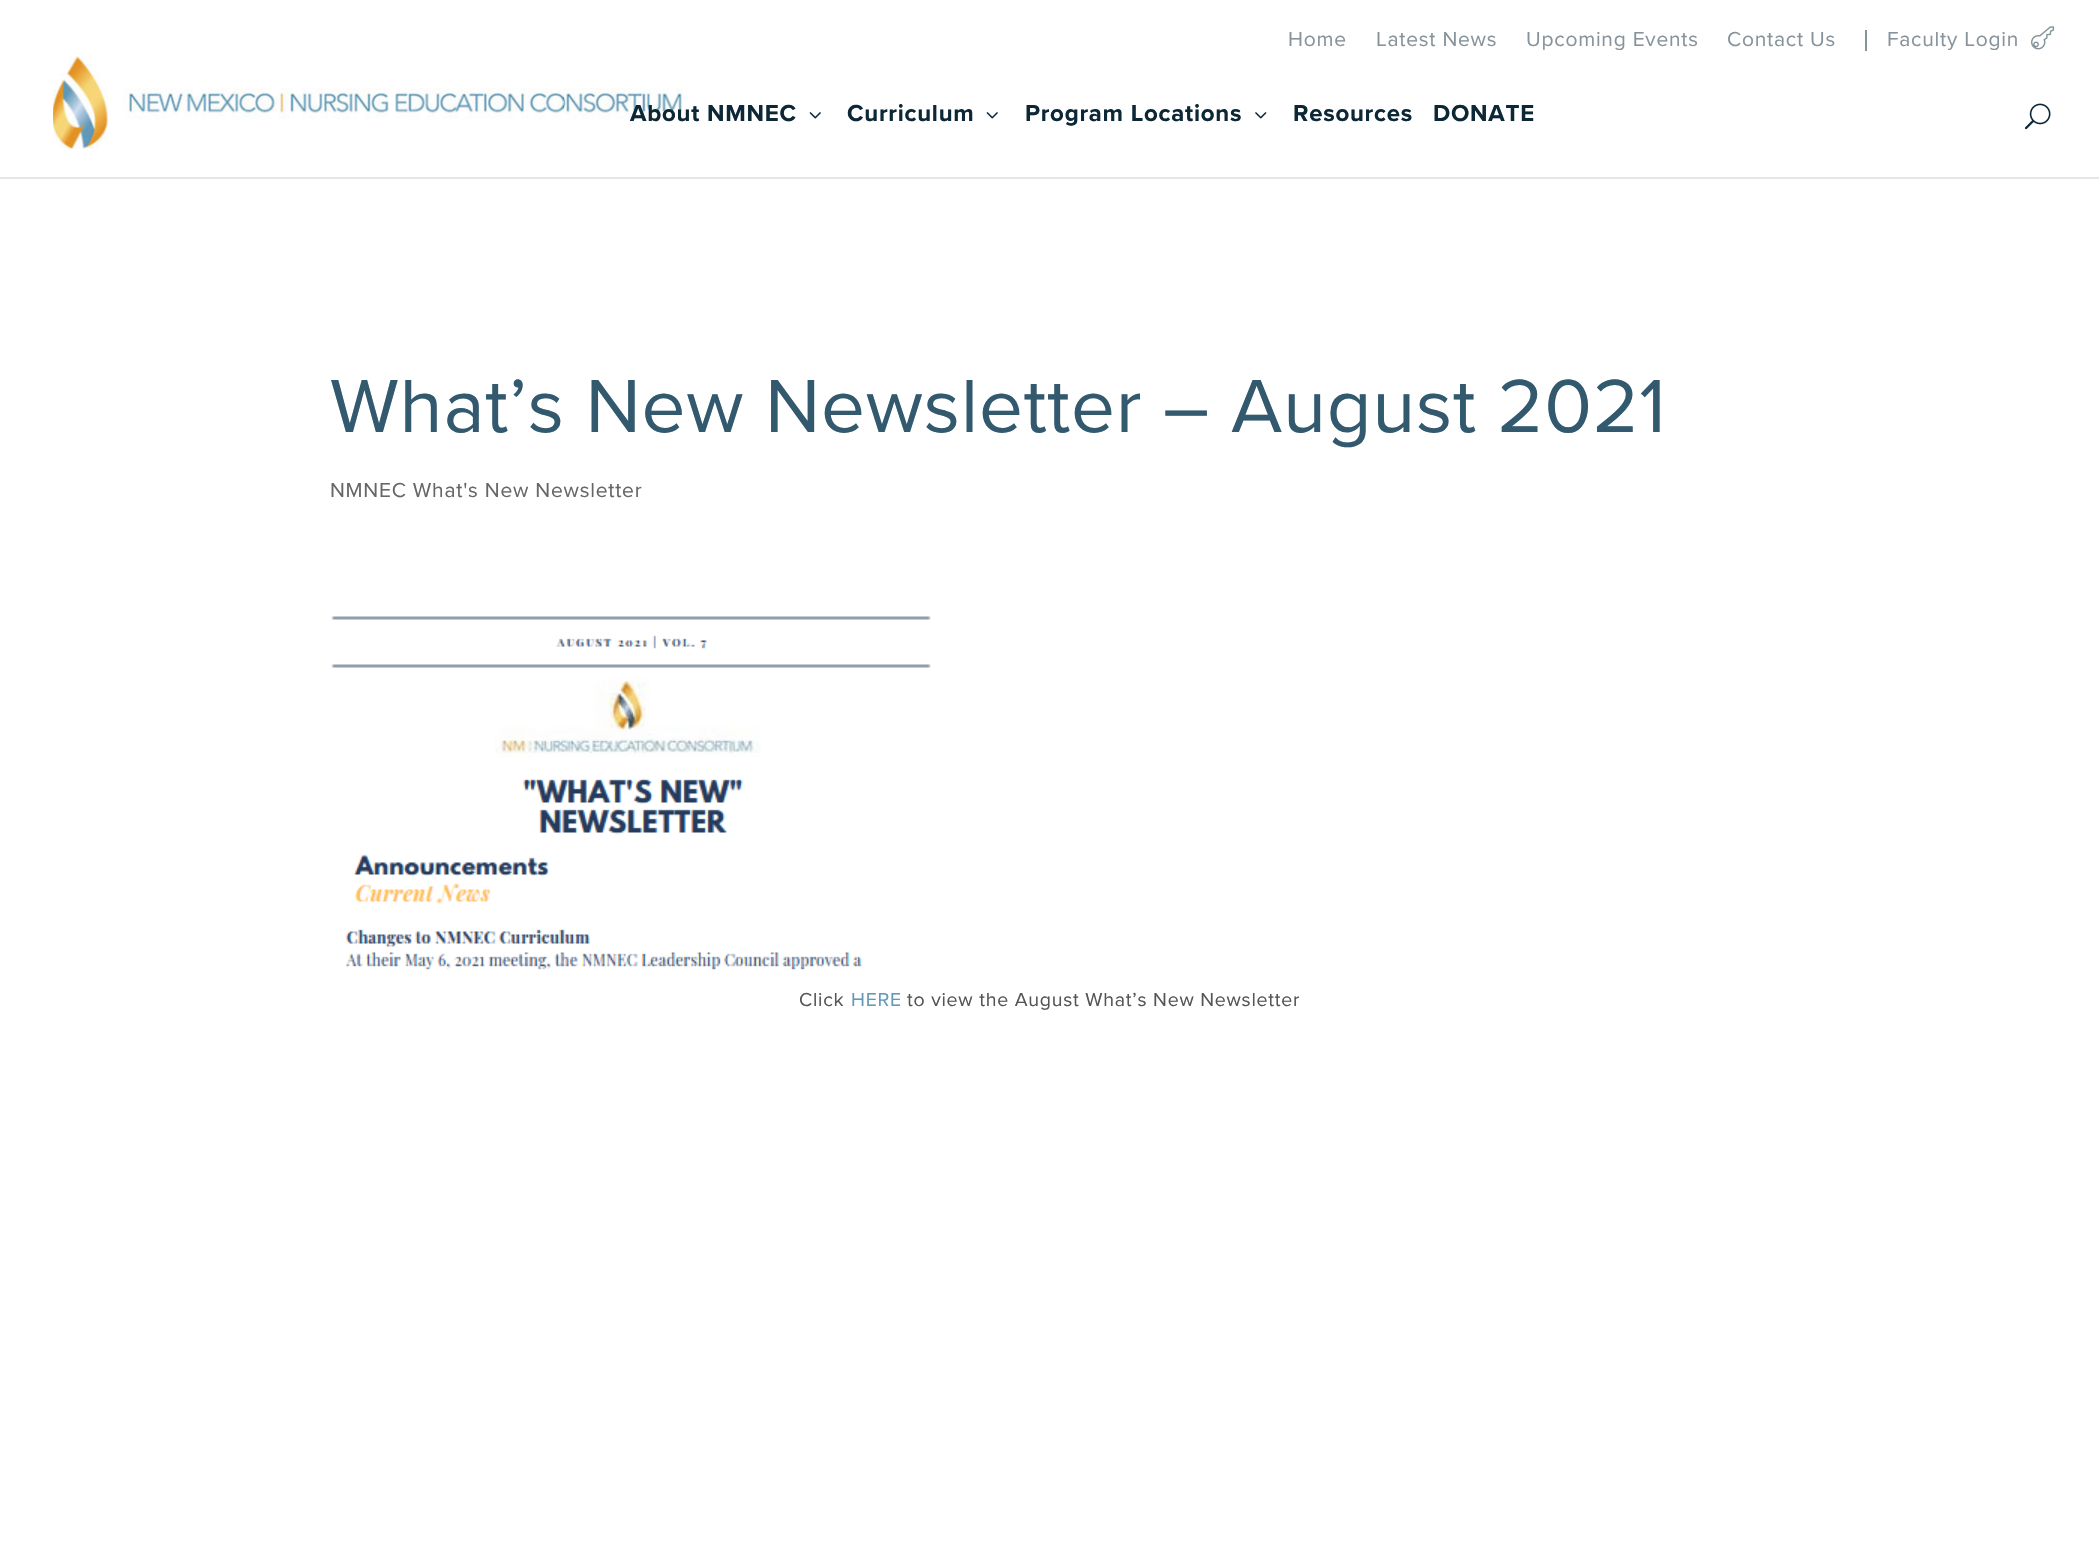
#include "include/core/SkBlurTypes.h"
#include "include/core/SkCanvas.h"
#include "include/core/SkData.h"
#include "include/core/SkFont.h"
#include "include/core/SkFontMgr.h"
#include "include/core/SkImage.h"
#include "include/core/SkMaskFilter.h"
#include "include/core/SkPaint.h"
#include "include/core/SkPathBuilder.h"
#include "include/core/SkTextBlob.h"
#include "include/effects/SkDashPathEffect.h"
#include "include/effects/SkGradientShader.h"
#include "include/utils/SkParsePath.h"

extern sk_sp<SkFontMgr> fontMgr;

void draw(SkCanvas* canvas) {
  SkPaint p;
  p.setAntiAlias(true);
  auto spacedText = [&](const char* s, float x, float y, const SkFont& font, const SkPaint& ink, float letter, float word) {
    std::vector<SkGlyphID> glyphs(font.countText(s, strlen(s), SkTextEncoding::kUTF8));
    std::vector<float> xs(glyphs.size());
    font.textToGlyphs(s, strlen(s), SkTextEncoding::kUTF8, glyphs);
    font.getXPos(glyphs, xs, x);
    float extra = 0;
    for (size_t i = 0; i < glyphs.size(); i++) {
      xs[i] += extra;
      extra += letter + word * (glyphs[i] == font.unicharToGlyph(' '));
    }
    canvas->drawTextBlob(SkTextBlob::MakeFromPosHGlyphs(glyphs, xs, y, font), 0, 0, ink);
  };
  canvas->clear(SK_ColorWHITE);
  p.setColor(SkColorSetRGB(134, 147, 155));
  canvas->drawRect(SkRect::MakeLTRB(1865, 30, 1867, 51), p);
  canvas->drawImageRect(SkImages::DeferredFromEncodedData(SkData::MakeFromFileName("images/1.png")), SkRect::MakeLTRB(2031, 26, 2055, 50), SkSamplingOptions());
  p.setColor(SkColorSetRGB(230, 230, 230));
  canvas->drawRect(SkRect::MakeLTRB(0, 177, 2099, 179), p);
  canvas->drawImageRect(SkImages::DeferredFromEncodedData(SkData::MakeFromFileName("images/2.png")), SkRect::MakeLTRB(53, 56, 683, 149), SkSamplingOptions());
  canvas->drawImageRect(SkImages::DeferredFromEncodedData(SkData::MakeFromFileName("images/3.png")), SkRect::MakeLTRB(809, 112, 821, 119), SkSamplingOptions());
  canvas->drawImageRect(SkImages::DeferredFromEncodedData(SkData::MakeFromFileName("images/3.png")), SkRect::MakeLTRB(986, 112, 998, 119), SkSamplingOptions());
  canvas->drawImageRect(SkImages::DeferredFromEncodedData(SkData::MakeFromFileName("images/4.png")), SkRect::MakeLTRB(1255, 112, 1267, 119), SkSamplingOptions());
  canvas->drawImageRect(SkImages::DeferredFromEncodedData(SkData::MakeFromFileName("images/5.png")), SkRect::MakeLTRB(2024, 103, 2051, 130), SkSamplingOptions());
  canvas->drawImageRect(SkImages::DeferredFromEncodedData(SkData::MakeFromFileName("images/6.png")), SkRect::MakeLTRB(331, 616, 931, 970), SkSamplingOptions());
  SkFont font1(fontMgr->matchFamilyStyle("Proxima Nova", SkFontStyle::Normal()), 21);
  font1.setSubpixel(true);
  p.setColor(SkColorSetRGB(134, 147, 155));
  spacedText("Home", 1288, 46, font1, p, 0.75f, 0);
  spacedText("Latest News", 1376, 46, font1, p, 0.75f, 0);
  spacedText("Upcoming Events", 1526, 46, font1, p, 0.75f, 0);
  spacedText("Contact Us", 1727, 46, font1, p, 0.75f, 0);
  spacedText("Faculty Login", 1887, 46, font1, p, 0.75f, 0);
  SkFont font2(fontMgr->matchFamilyStyle("Proxima Nova", SkFontStyle::Bold()), 24);
  font2.setSubpixel(true);
  p.setColor(SkColorSetRGB(12, 39, 54));
  spacedText("About NMNEC", 630, 121, font2, p, 0.75f, 0);
  spacedText("Curriculum", 847, 121, font2, p, 0.75f, 0);
  spacedText("Program Locations", 1025, 121, font2, p, 0.75f, 0);
  spacedText("Resources", 1293, 121, font2, p, 0.75f, 0);
  spacedText("DONATE", 1433, 121, font2, p, 0.75f, 0);
  SkFont font3(fontMgr->matchFamilyStyle("Proxima Nova", SkFontStyle::Normal()), 78);
  font3.setSubpixel(true);
  p.setColor(SkColorSetRGB(50, 89, 110));
  spacedText("What’s New Newsletter – August 2021", 330, 432, font3, p, 0.75f, 0);
  p.setColor(SkColorSetRGB(102, 102, 102));
  spacedText("NMNEC What's New Newsletter", 330, 497, font1, p, 0.75f, 0);
  SkFont font4(fontMgr->matchFamilyStyle("Proxima Nova", SkFontStyle::Normal()), 19.5f);
  font4.setSubpixel(true);
  p.setColor(SkColorSetRGB(85, 85, 85));
  spacedText("Click", 799, 1006, font4, p, 0.75f, 0);
  p.setColor(SkColorSetRGB(97, 153, 183));
  spacedText("HERE", 851, 1006, font4, p, 0.75f, 0);
  p.setColor(SkColorSetRGB(85, 85, 85));
  spacedText("to view the August What’s New Newsletter", 907, 1006, font4, p, 0.75f, 0);
}
